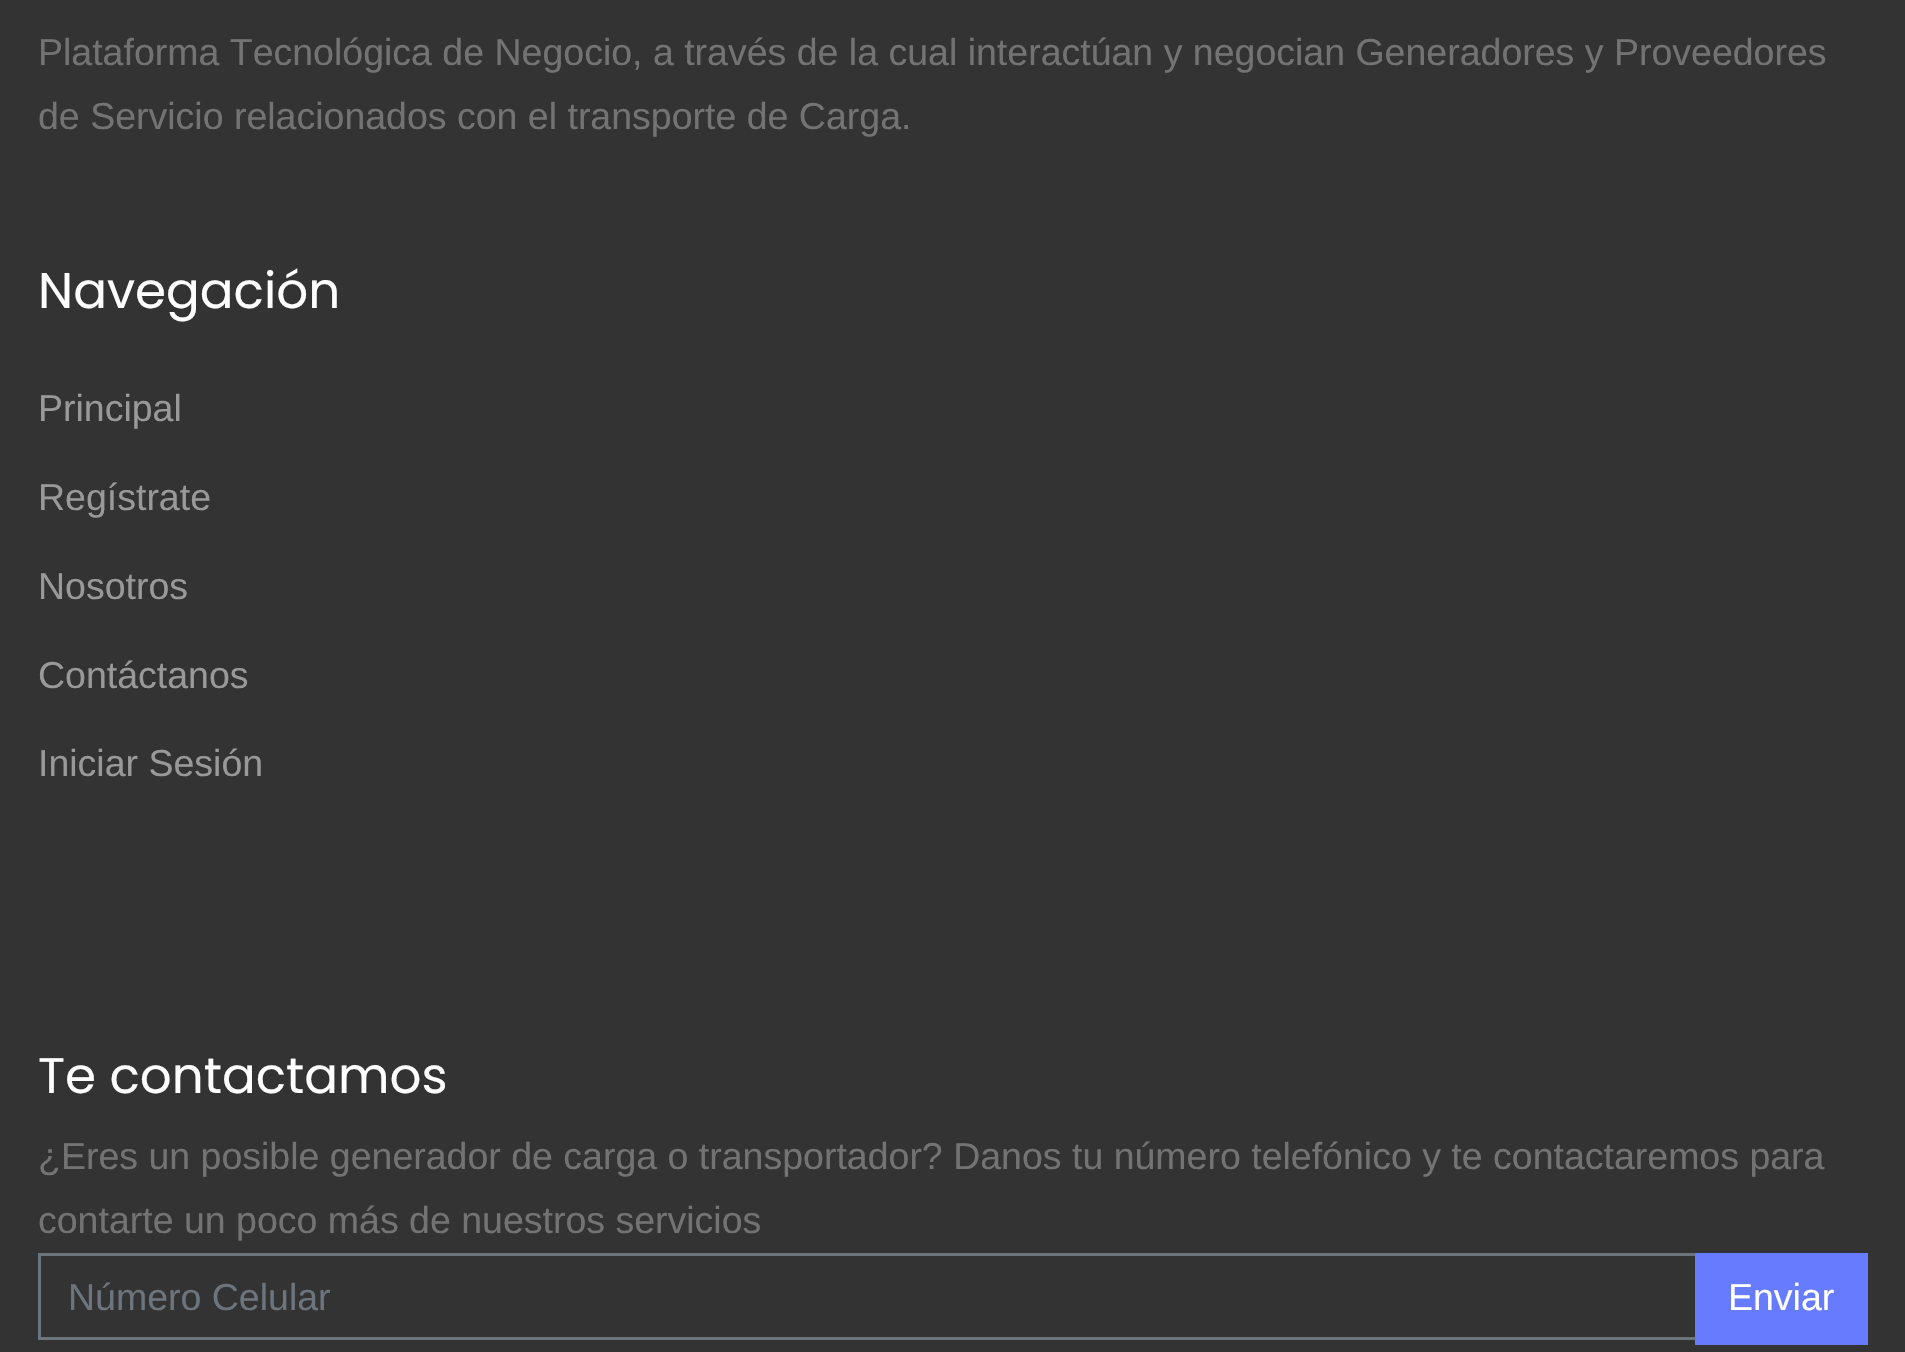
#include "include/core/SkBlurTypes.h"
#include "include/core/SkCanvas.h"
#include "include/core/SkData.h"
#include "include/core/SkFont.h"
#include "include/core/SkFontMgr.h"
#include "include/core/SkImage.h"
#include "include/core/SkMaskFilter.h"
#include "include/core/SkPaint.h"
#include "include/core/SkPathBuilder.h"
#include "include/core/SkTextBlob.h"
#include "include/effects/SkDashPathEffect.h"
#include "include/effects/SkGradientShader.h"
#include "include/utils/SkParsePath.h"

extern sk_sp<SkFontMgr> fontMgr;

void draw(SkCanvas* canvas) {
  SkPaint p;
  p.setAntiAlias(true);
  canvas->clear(SkColorSetRGB(51, 51, 51));
  p.setStyle(SkPaint::kStroke_Style);
  p.setStrokeWidth(3);
  p.setColor(SkColorSetRGB(108, 117, 125));
  canvas->drawRect(SkRect::MakeLTRB(39.5f, 1254.5f, 1696.5f, 1338.5f), p);
  p.setStyle(SkPaint::kFill_Style);
  p.setColor(SkColorSetRGB(103, 123, 255));
  canvas->drawRect(SkRect::MakeLTRB(1695, 1253, 1868, 1345), p);
  SkFont font1(fontMgr->matchFamilyStyle("Liberation Sans", SkFontStyle::Normal()), 37.5f);
  font1.setSubpixel(true);
  p.setColor(SkColorSetRGB(115, 115, 115));
  canvas->drawString("Plataforma Tecnológica de Negocio, a través de la cual interactúan y negocian Generadores y Proveedores", 38, 65, font1, p);
  canvas->drawString("de Servicio relacionados con el transporte de Carga.", 38, 129, font1, p);
  SkFont font2(fontMgr->matchFamilyStyle("Poppins", SkFontStyle::Normal()), 50);
  font2.setSubpixel(true);
  p.setColor(SK_ColorWHITE);
  canvas->drawString("Navegación", 38, 308, font2, p);
  p.setColor(SkColorSetRGB(153, 153, 153));
  canvas->drawString("Principal", 38, 421, font1, p);
  canvas->drawString("Regístrate", 38, 510, font1, p);
  canvas->drawString("Nosotros", 38, 599, font1, p);
  canvas->drawString("Contáctanos", 38, 688, font1, p);
  canvas->drawString("Iniciar Sesión", 38, 776, font1, p);
  p.setColor(SK_ColorWHITE);
  canvas->drawString("Te contactamos", 38, 1093, font2, p);
  p.setColor(SkColorSetRGB(115, 115, 115));
  canvas->drawString("¿Eres un posible generador de carga o transportador? Danos tu número telefónico y te contactaremos para", 38, 1169, font1, p);
  canvas->drawString("contarte un poco más de nuestros servicios", 38, 1233, font1, p);
  p.setColor(SkColorSetRGB(108, 117, 125));
  canvas->drawString("Número Celular", 68, 1310, font1, p);
  p.setColor(SK_ColorWHITE);
  canvas->drawString("Enviar", 1728, 1310, font1, p);
}
